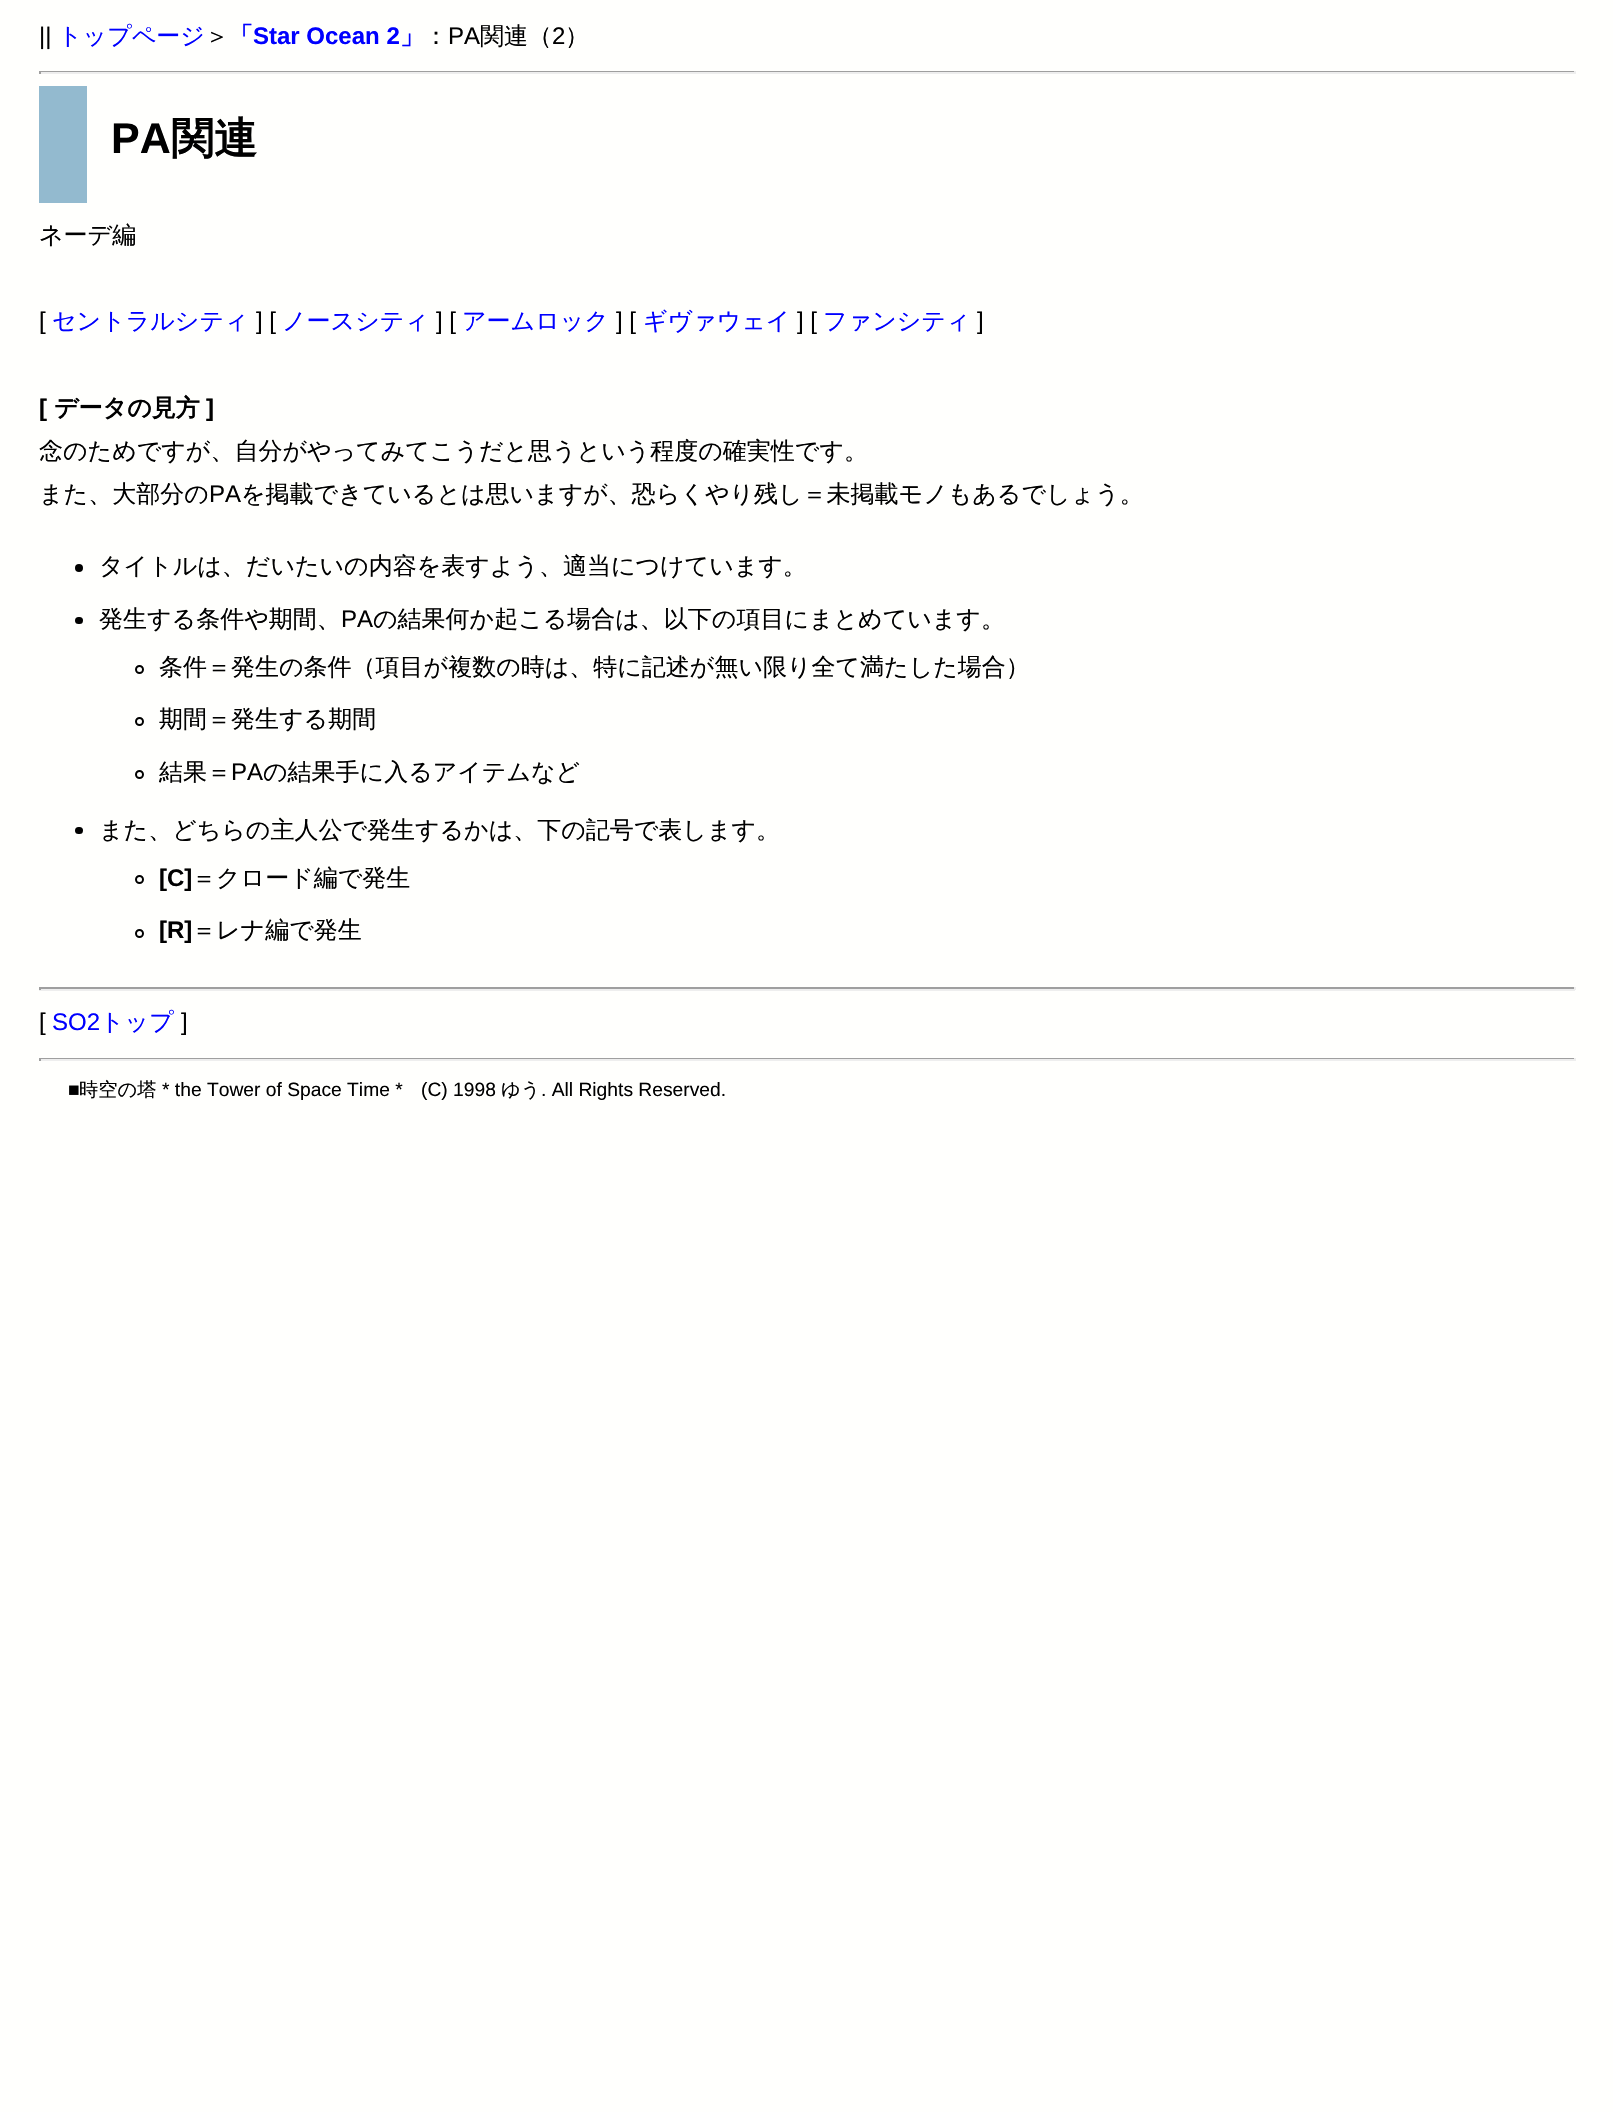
#include "include/core/SkBlurTypes.h"
#include "include/core/SkCanvas.h"
#include "include/core/SkData.h"
#include "include/core/SkFont.h"
#include "include/core/SkFontMgr.h"
#include "include/core/SkImage.h"
#include "include/core/SkMaskFilter.h"
#include "include/core/SkPaint.h"
#include "include/core/SkPathBuilder.h"
#include "include/core/SkTextBlob.h"
#include "include/effects/SkDashPathEffect.h"
#include "include/effects/SkGradientShader.h"
#include "include/utils/SkParsePath.h"

extern sk_sp<SkFontMgr> fontMgr;

void draw(SkCanvas* canvas) {
  SkPaint p;
  p.setAntiAlias(true);
  canvas->clear(SkColorSetRGB(255, 255, 253));
  p.setColor(SkColorSetRGB(159, 159, 159));
  canvas->drawRect(SkRect::MakeLTRB(39, 71, 1575, 72), p);
  p.setColor(SkColorSetRGB(238, 238, 238));
  canvas->drawRect(SkRect::MakeLTRB(1574, 71, 1576, 74), p);
  canvas->drawRect(SkRect::MakeLTRB(39, 72, 1575, 74), p);
  p.setColor(SkColorSetRGB(159, 159, 159));
  canvas->drawRect(SkRect::MakeLTRB(39, 71, 41, 74), p);
  p.setColor(SkColorSetRGB(147, 186, 207));
  canvas->drawRect(SkRect::MakeLTRB(39, 86, 87, 203), p);
  p.setColor(SK_ColorBLACK);
  canvas->drawCircle(79, 568, 4, p);
  canvas->drawRoundRect(SkRect::MakeLTRB(75, 617, 83, 624), 3.5f, 3.5f, p);
  p.setStyle(SkPaint::kStroke_Style);
  p.setStrokeWidth(2);
  canvas->drawCircle(139.5f, 669.5f, 3.5f, p);
  canvas->drawCircle(139.5f, 721.5f, 3.5f, p);
  canvas->drawCircle(139.5f, 774.5f, 3.5f, p);
  p.setStyle(SkPaint::kFill_Style);
  canvas->drawRoundRect(SkRect::MakeLTRB(75, 827, 83, 834), 3.5f, 3.5f, p);
  p.setStyle(SkPaint::kStroke_Style);
  canvas->drawCircle(139.5f, 879.5f, 3.5f, p);
  canvas->drawCircle(139.5f, 933.5f, 3.5f, p);
  p.setStyle(SkPaint::kFill_Style);
  p.setColor(SkColorSetRGB(159, 159, 159));
  canvas->drawRect(SkRect::MakeLTRB(39, 987, 1575, 989), p);
  p.setColor(SkColorSetRGB(238, 238, 238));
  canvas->drawRect(SkRect::MakeLTRB(1574, 987, 1576, 990), p);
  canvas->drawRect(SkRect::MakeLTRB(39, 989, 1575, 991), p);
  p.setColor(SkColorSetRGB(159, 159, 159));
  canvas->drawRect(SkRect::MakeLTRB(39, 987, 41, 990), p);
  canvas->drawRect(SkRect::MakeLTRB(39, 1058, 1575, 1059), p);
  p.setColor(SkColorSetRGB(238, 238, 238));
  canvas->drawRect(SkRect::MakeLTRB(1574, 1058, 1576, 1061), p);
  canvas->drawRect(SkRect::MakeLTRB(39, 1059, 1575, 1061), p);
  p.setColor(SkColorSetRGB(159, 159, 159));
  canvas->drawRect(SkRect::MakeLTRB(39, 1058, 41, 1061), p);
  SkFont font1(fontMgr->matchFamilyStyle("Liberation Sans", SkFontStyle::Normal()), 24);
  font1.setSubpixel(true);
  p.setColor(SK_ColorBLACK);
  canvas->drawString("||", 39, 44, font1, p);
  SkFont font2(fontMgr->matchFamilyStyle("WenQuanYi Zen Hei", SkFontStyle(500, SkFontStyle::kNormal_Width, SkFontStyle::kUpright_Slant)), 24);
  font2.setSubpixel(true);
  p.setColor(SkColorSetRGB(0, 0, 255));
  canvas->drawString("トップページ", 58, 44, font2, p);
  p.setColor(SK_ColorBLACK);
  canvas->drawString("＞", 205, 44, font2, p);
  SkFont font3(fontMgr->matchFamilyStyle("WenQuanYi Zen Hei", SkFontStyle::Bold()), 24);
  font3.setSubpixel(true);
  p.setColor(SkColorSetRGB(0, 0, 255));
  canvas->drawString("「", 229, 44, font3, p);
  SkFont font4(fontMgr->matchFamilyStyle("Liberation Sans", SkFontStyle::Bold()), 24);
  font4.setSubpixel(true);
  canvas->drawString("Star Ocean 2", 253, 44, font4, p);
  canvas->drawString("」", 400, 44, font3, p);
  p.setColor(SK_ColorBLACK);
  canvas->drawString("：", 424, 44, font2, p);
  canvas->drawString("PA", 448, 44, font1, p);
  canvas->drawString("関連（", 480, 44, font2, p);
  canvas->drawString("2", 552, 44, font1, p);
  canvas->drawString("）", 565, 44, font2, p);
  SkFont font5(fontMgr->matchFamilyStyle("Liberation Sans", SkFontStyle::Bold()), 43);
  font5.setSubpixel(true);
  canvas->drawString("PA", 111, 153, font5, p);
  SkFont font6(fontMgr->matchFamilyStyle("WenQuanYi Zen Hei", SkFontStyle::Bold()), 43);
  font6.setSubpixel(true);
  canvas->drawString("関連", 171, 153, font6, p);
  canvas->drawString("ネーデ編", 39, 243, font2, p);
  canvas->drawString("[", 39, 329, font1, p);
  p.setColor(SkColorSetRGB(0, 0, 255));
  canvas->drawString("セントラルシティ", 52, 329, font2, p);
  p.setColor(SK_ColorBLACK);
  canvas->drawString("] [", 256, 329, font1, p);
  p.setColor(SkColorSetRGB(0, 0, 255));
  canvas->drawString("ノースシティ", 282, 329, font2, p);
  p.setColor(SK_ColorBLACK);
  canvas->drawString("] [", 436, 329, font1, p);
  p.setColor(SkColorSetRGB(0, 0, 255));
  canvas->drawString("アームロック", 462, 329, font2, p);
  p.setColor(SK_ColorBLACK);
  canvas->drawString("] [", 616, 329, font1, p);
  p.setColor(SkColorSetRGB(0, 0, 255));
  canvas->drawString("ギヴァウェイ", 643, 329, font2, p);
  p.setColor(SK_ColorBLACK);
  canvas->drawString("] [", 797, 329, font1, p);
  p.setColor(SkColorSetRGB(0, 0, 255));
  canvas->drawString("ファンシティ", 823, 329, font2, p);
  p.setColor(SK_ColorBLACK);
  canvas->drawString("]", 977, 329, font1, p);
  canvas->drawString("[", 39, 416, font4, p);
  canvas->drawString("データの見方", 54, 416, font3, p);
  canvas->drawString("]", 206, 416, font4, p);
  canvas->drawString("念のためですが、自分がやってみてこうだと思うという程度の確実性です。", 39, 459, font2, p);
  canvas->drawString("また、大部分の", 39, 502, font2, p);
  canvas->drawString("PA", 209, 502, font1, p);
  canvas->drawString("を掲載できているとは思いますが、恐らくやり残し＝未掲載モノもあるでしょう。", 241, 502, font2, p);
  canvas->drawString("タイトルは、だいたいの内容を表すよう、適当につけています。", 99, 574, font2, p);
  canvas->drawString("発生する条件や期間、", 99, 627, font2, p);
  canvas->drawString("PA", 341, 627, font1, p);
  canvas->drawString("の結果何か起こる場合は、以下の項目にまとめています。", 373, 627, font2, p);
  canvas->drawString("条件＝発生の条件（項目が複数の時は、特に記述が無い限り全て満たした場合）", 159, 675, font2, p);
  canvas->drawString("期間＝発生する期間", 159, 727, font2, p);
  canvas->drawString("結果＝", 159, 780, font2, p);
  canvas->drawString("PA", 231, 780, font1, p);
  canvas->drawString("の結果手に入るアイテムなど", 263, 780, font2, p);
  canvas->drawString("また、どちらの主人公で発生するかは、下の記号で表します。", 99, 838, font2, p);
  canvas->drawString("[C]", 159, 886, font4, p);
  canvas->drawString("＝クロード編で発生", 192, 886, font2, p);
  canvas->drawString("[R]", 159, 938, font4, p);
  canvas->drawString("＝レナ編で発生", 192, 938, font2, p);
  canvas->drawString("[", 39, 1030, font1, p);
  p.setColor(SkColorSetRGB(0, 0, 255));
  canvas->drawString("SO2", 52, 1030, font1, p);
  canvas->drawString("トップ", 100, 1030, font2, p);
  p.setColor(SK_ColorBLACK);
  canvas->drawString("]", 181, 1030, font1, p);
  SkFont font7(fontMgr->matchFamilyStyle("Liberation Sans", SkFontStyle::Normal()), 19.25f);
  font7.setSubpixel(true);
  canvas->drawString("■", 68, 1096, font7, p);
  SkFont font8(fontMgr->matchFamilyStyle("WenQuanYi Zen Hei", SkFontStyle(500, SkFontStyle::kNormal_Width, SkFontStyle::kUpright_Slant)), 19.25f);
  font8.setSubpixel(true);
  canvas->drawString("時空の塔", 79, 1096, font8, p);
  canvas->drawString("* the Tower of Space Time *", 162, 1096, font7, p);
  canvas->drawString("(C) 1998", 421, 1096, font7, p);
  canvas->drawString("ゆう", 501, 1096, font8, p);
  canvas->drawString(". All Rights Reserved.", 541, 1096, font7, p);
}
